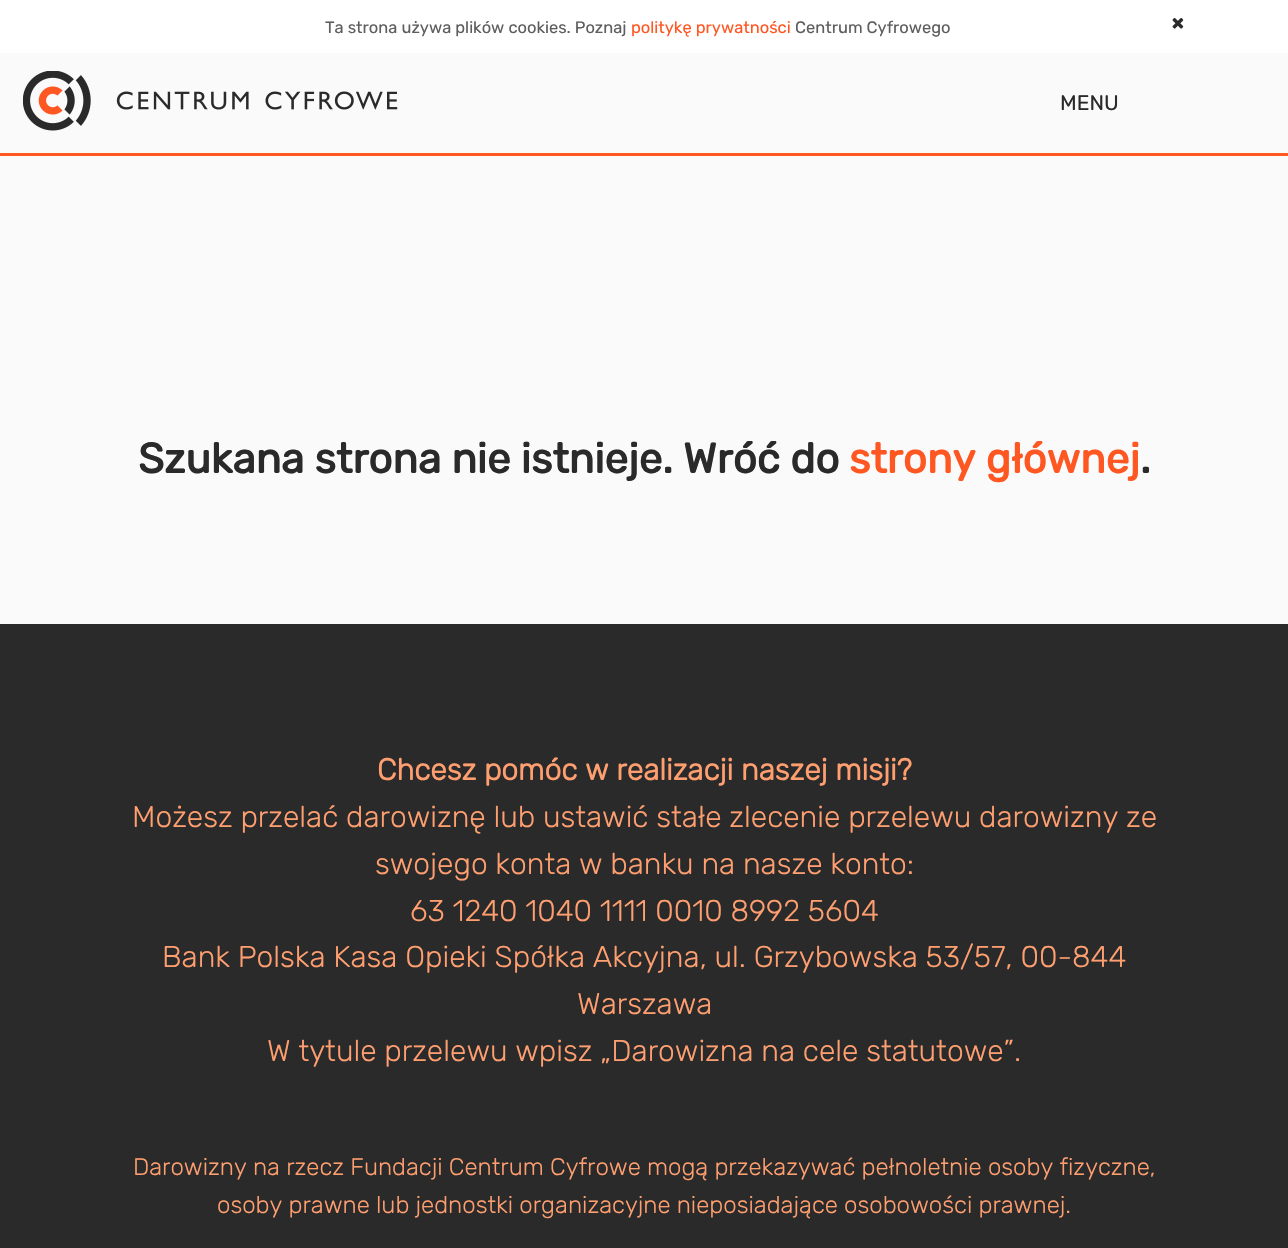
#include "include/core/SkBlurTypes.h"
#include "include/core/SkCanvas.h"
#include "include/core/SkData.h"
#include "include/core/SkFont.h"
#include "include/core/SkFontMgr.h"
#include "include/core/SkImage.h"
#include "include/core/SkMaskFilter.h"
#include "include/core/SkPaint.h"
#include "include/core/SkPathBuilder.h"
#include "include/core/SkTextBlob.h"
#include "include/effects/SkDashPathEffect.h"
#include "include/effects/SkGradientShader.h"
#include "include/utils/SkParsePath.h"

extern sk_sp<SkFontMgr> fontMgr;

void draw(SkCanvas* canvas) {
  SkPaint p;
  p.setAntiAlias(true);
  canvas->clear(SkColorSetRGB(250, 250, 250));
  p.setColor(SK_ColorWHITE);
  canvas->drawRect(SkRect::MakeLTRB(0, 0, 1288, 53), p);
  canvas->drawImageRect(SkImages::DeferredFromEncodedData(SkData::MakeFromFileName("images/1.png")), SkRect::MakeLTRB(1172, 18, 1184, 29), SkSamplingOptions());
  p.setColor(SkColorSetRGB(255, 87, 34));
  canvas->drawRect(SkRect::MakeLTRB(0, 153, 1288, 156), p);
  canvas->drawImageRect(SkImages::DeferredFromEncodedData(SkData::MakeFromFileName("images/2.png")), SkRect::MakeLTRB(23, 71, 398, 131), SkSamplingOptions());
  p.setColor(SkColorSetRGB(42, 42, 42));
  canvas->drawRect(SkRect::MakeLTRB(0, 624, 1288, 1248), p);
  SkFont font1(fontMgr->matchFamilyStyle("Rubik", SkFontStyle::Normal()), 16.5f);
  font1.setSubpixel(true);
  p.setColor(SkColorSetRGB(94, 94, 94));
  canvas->drawString("Ta strona używa plików cookies. Poznaj", 325, 33, font1, p);
  p.setColor(SkColorSetRGB(255, 87, 34));
  canvas->drawString("politykę prywatności", 631, 33, font1, p);
  p.setColor(SkColorSetRGB(94, 94, 94));
  canvas->drawString("Centrum Cyfrowego", 795, 33, font1, p);
  SkFont font2(fontMgr->matchFamilyStyle("Rubik", SkFontStyle::Normal()), 21);
  font2.setSubpixel(true);
  p.setColor(SkColorSetRGB(42, 42, 42));
  canvas->drawString("MENU", 1060, 110, font2, p);
  SkFont font3(fontMgr->matchFamilyStyle("Rubik", SkFontStyle::Bold()), 42);
  font3.setSubpixel(true);
  canvas->drawString("Szukana strona nie istnieje. Wróć do", 138, 473, font3, p);
  p.setColor(SkColorSetRGB(255, 87, 34));
  canvas->drawString("strony głównej", 849, 473, font3, p);
  p.setColor(SkColorSetRGB(42, 42, 42));
  canvas->drawString(".", 1140, 473, font3, p);
  SkFont font4(fontMgr->matchFamilyStyle("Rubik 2", SkFontStyle::Bold()), 30);
  font4.setSubpixel(true);
  p.setColor(SkColorSetRGB(255, 159, 112));
  canvas->drawString("Chcesz pomóc w realizacji naszej misji?", 377, 780, font4, p);
  SkFont font5(fontMgr->matchFamilyStyle("Rubik", SkFontStyle(300, SkFontStyle::kNormal_Width, SkFontStyle::kUpright_Slant)), 30);
  font5.setSubpixel(true);
  canvas->drawString("Możesz przelać darowiznę lub ustawić stałe zlecenie przelewu darowizny ze", 132, 827, font5, p);
  canvas->drawString("swojego konta w banku na nasze konto:", 375, 874, font5, p);
  canvas->drawString("63 1240 1040 1111 0010 8992 5604", 410, 921, font5, p);
  canvas->drawString("Bank Polska Kasa Opieki Spółka Akcyjna, ul. Grzybowska 53/57, 00-844", 162, 967, font5, p);
  canvas->drawString("Warszawa", 577, 1014, font5, p);
  canvas->drawString("W tytule przelewu wpisz „Darowizna na cele statutowe”.", 267, 1061, font5, p);
  SkFont font6(fontMgr->matchFamilyStyle("Rubik", SkFontStyle(300, SkFontStyle::kNormal_Width, SkFontStyle::kUpright_Slant)), 24);
  font6.setSubpixel(true);
  canvas->drawString("Darowizny na rzecz Fundacji Centrum Cyfrowe mogą przekazywać pełnoletnie osoby fizyczne,", 133, 1175, font6, p);
  canvas->drawString("osoby prawne lub jednostki organizacyjne nieposiadające osobowości prawnej.", 217, 1213, font6, p);
}
